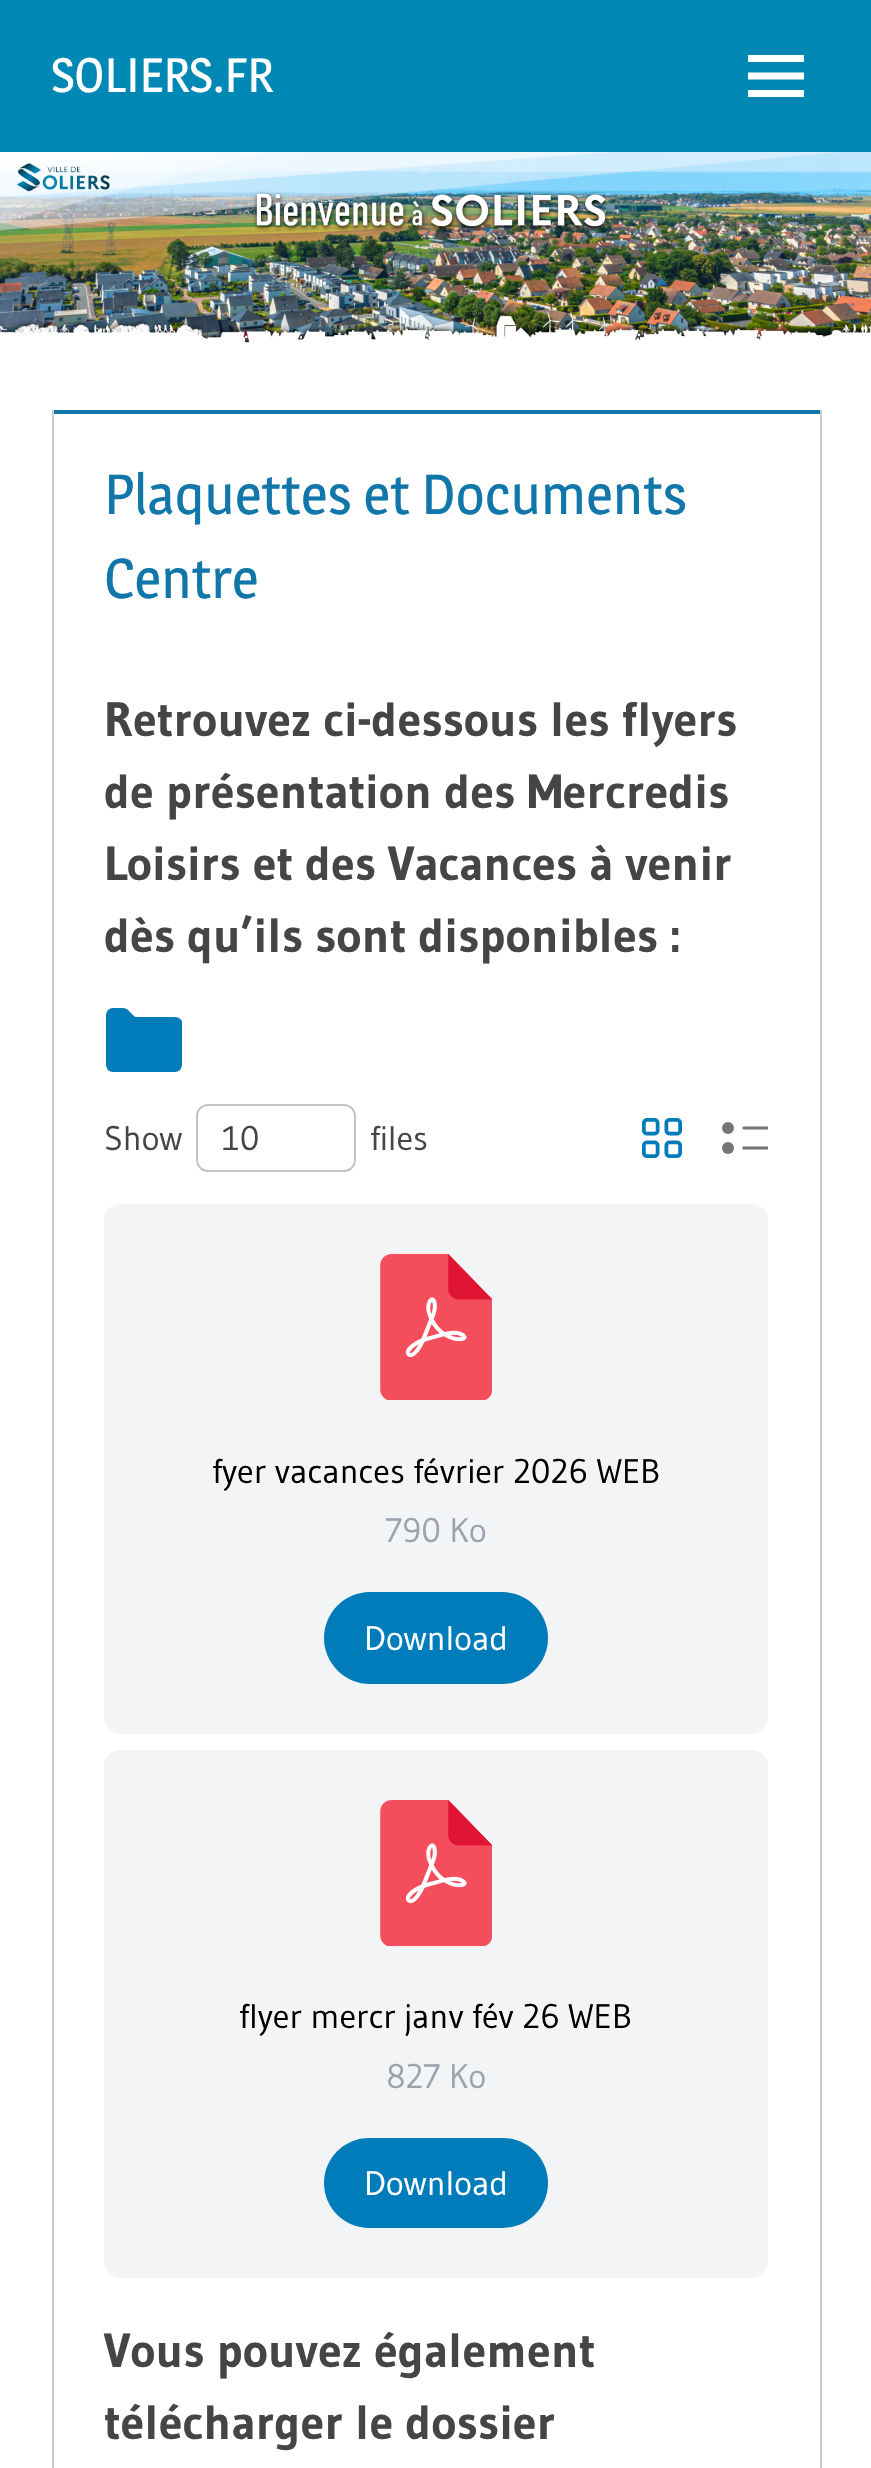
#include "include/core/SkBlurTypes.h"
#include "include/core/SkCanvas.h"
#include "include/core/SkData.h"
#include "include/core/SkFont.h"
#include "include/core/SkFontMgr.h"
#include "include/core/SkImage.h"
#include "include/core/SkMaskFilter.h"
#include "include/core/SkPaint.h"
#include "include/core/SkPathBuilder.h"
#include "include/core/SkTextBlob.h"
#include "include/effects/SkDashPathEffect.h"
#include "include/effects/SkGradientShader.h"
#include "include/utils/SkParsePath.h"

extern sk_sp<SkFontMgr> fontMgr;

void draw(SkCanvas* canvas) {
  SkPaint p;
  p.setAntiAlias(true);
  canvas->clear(SK_ColorWHITE);
  p.setColor(SkColorSetRGB(0, 136, 181));
  canvas->drawRect(SkRect::MakeLTRB(0, 0, 871, 152), p);
  canvas->drawImageRect(SkImages::DeferredFromEncodedData(SkData::MakeFromFileName("images/1.png")), SkRect::MakeLTRB(748, 55, 804, 97), SkSamplingOptions());
  canvas->drawImageRect(SkImages::DeferredFromEncodedData(SkData::MakeFromFileName("images/2.png")), SkRect::MakeLTRB(0, 152, 871, 343), SkSamplingOptions());
  p.setColor(SkColorSetRGB(17, 119, 170));
  canvas->drawRect(SkRect::MakeLTRB(54, 410, 820, 414), p);
  p.setColor(SkColorSetRGB(204, 204, 204));
  canvas->drawPath(SkPathBuilder().moveTo(822, 410).lineTo(822, 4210).lineTo(820, 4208).lineTo(820, 410).close().detach(), p);
  canvas->drawPath(SkPathBuilder().moveTo(52, 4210).lineTo(52, 410).lineTo(54, 410).lineTo(54, 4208).close().detach(), p);
  p.setColor(SkColorSetRGB(0, 124, 186));
  canvas->drawPath(SkPathBuilder().moveTo(175, 1017).lineTo(136, 1017).cubicTo(135, 1017, 134, 1016, 133, 1015).lineTo(128, 1010).cubicTo(127, 1009, 125, 1008, 123, 1008).lineTo(113, 1008).cubicTo(109, 1008, 106, 1011, 106, 1016).lineTo(106, 1064).cubicTo(106, 1069, 109, 1072, 113, 1072).lineTo(175, 1072).cubicTo(179, 1072, 182, 1069, 182, 1064).lineTo(182, 1024).cubicTo(183, 1020, 179, 1017, 175, 1017).close().detach(), p);
  p.setStyle(SkPaint::kStroke_Style);
  p.setStrokeWidth(2);
  p.setColor(SkColorSetRGB(196, 196, 196));
  canvas->drawRoundRect(SkRect::MakeLTRB(197, 1105, 355, 1171), 11, 11, p);
  canvas->drawImageRect(SkImages::DeferredFromEncodedData(SkData::MakeFromFileName("images/3.png")), SkRect::MakeLTRB(642, 1118, 682, 1158), SkSamplingOptions());
  p.setStrokeWidth(3);
  p.setColor(SkColorSetRGB(117, 117, 117));
  canvas->drawPath(SkPathBuilder().moveTo(742.5f, 1128).lineTo(768, 1128).moveTo(742.5f, 1148).lineTo(768, 1148).detach(), p);
  p.setStyle(SkPaint::kFill_Style);
  canvas->drawCircle(728, 1148, 6, p);
  canvas->drawCircle(728, 1128, 6, p);
  p.setColor(SkColorSetRGB(243, 244, 246));
  canvas->drawRoundRect(SkRect::MakeLTRB(104, 1204, 768, 1734), 16, 16, p);
  canvas->drawImageRect(SkImages::DeferredFromEncodedData(SkData::MakeFromFileName("images/4.png")), SkRect::MakeLTRB(380, 1254, 492, 1400), SkSamplingOptions());
  p.setColor(SkColorSetRGB(0, 124, 186));
  canvas->drawRoundRect(SkRect::MakeLTRB(324, 1592, 548, 1684), 46, 46, p);
  p.setColor(SkColorSetRGB(243, 244, 246));
  canvas->drawRoundRect(SkRect::MakeLTRB(104, 1750, 768, 2278), 16, 16, p);
  canvas->drawImageRect(SkImages::DeferredFromEncodedData(SkData::MakeFromFileName("images/4.png")), SkRect::MakeLTRB(380, 1800, 492, 1946), SkSamplingOptions());
  p.setColor(SkColorSetRGB(0, 124, 186));
  canvas->drawRoundRect(SkRect::MakeLTRB(324, 2138, 548, 2228), 45, 45, p);
  SkFont font1(fontMgr->matchFamilyStyle("Magra", SkFontStyle::Normal()), 48);
  font1.setSubpixel(true);
  p.setColor(SK_ColorWHITE);
  canvas->drawString("SOLIERS.FR", 51, 92, font1, p);
  SkFont font2(fontMgr->matchFamilyStyle("Magra", SkFontStyle::Normal()), 56);
  font2.setSubpixel(true);
  p.setColor(SkColorSetRGB(17, 119, 170));
  canvas->drawString("Plaquettes et Documents", 104, 514, font2, p);
  canvas->drawString("Centre", 104, 598, font2, p);
  SkFont font3(fontMgr->matchFamilyStyle("Gudea", SkFontStyle::Bold()), 48);
  font3.setSubpixel(true);
  p.setColor(SkColorSetRGB(69, 69, 69));
  canvas->drawString("Retrouvez ci-dessous les flyers", 104, 736, font3, p);
  canvas->drawString("de présentation des Mercredis", 104, 808, font3, p);
  canvas->drawString("Loisirs et des Vacances à venir", 104, 880, font3, p);
  canvas->drawString("dès qu’ils sont disponibles :", 104, 952, font3, p);
  SkFont font4(fontMgr->matchFamilyStyle("Gudea", SkFontStyle::Normal()), 34);
  font4.setSubpixel(true);
  canvas->drawString("Show", 104, 1150, font4, p);
  canvas->drawString("10", 222, 1150, font4, p);
  canvas->drawString("files", 370, 1150, font4, p);
  p.setColor(SK_ColorBLACK);
  canvas->drawString("fyer vacances février 2026 WEB", 212, 1483, font4, p);
  p.setColor(SkColorSetRGB(156, 163, 175));
  canvas->drawString("790 Ko", 385, 1542, font4, p);
  p.setColor(SK_ColorWHITE);
  canvas->drawString("Download", 364, 1650, font4, p);
  p.setColor(SK_ColorBLACK);
  canvas->drawString("flyer mercr janv fév 26 WEB", 239, 2028, font4, p);
  p.setColor(SkColorSetRGB(156, 163, 175));
  canvas->drawString("827 Ko", 386, 2088, font4, p);
  p.setColor(SK_ColorWHITE);
  canvas->drawString("Download", 364, 2195, font4, p);
  p.setColor(SkColorSetRGB(69, 69, 69));
  canvas->drawString("Vous pouvez également", 104, 2367, font3, p);
  canvas->drawString("télécharger le dossier", 104, 2439, font3, p);
}
